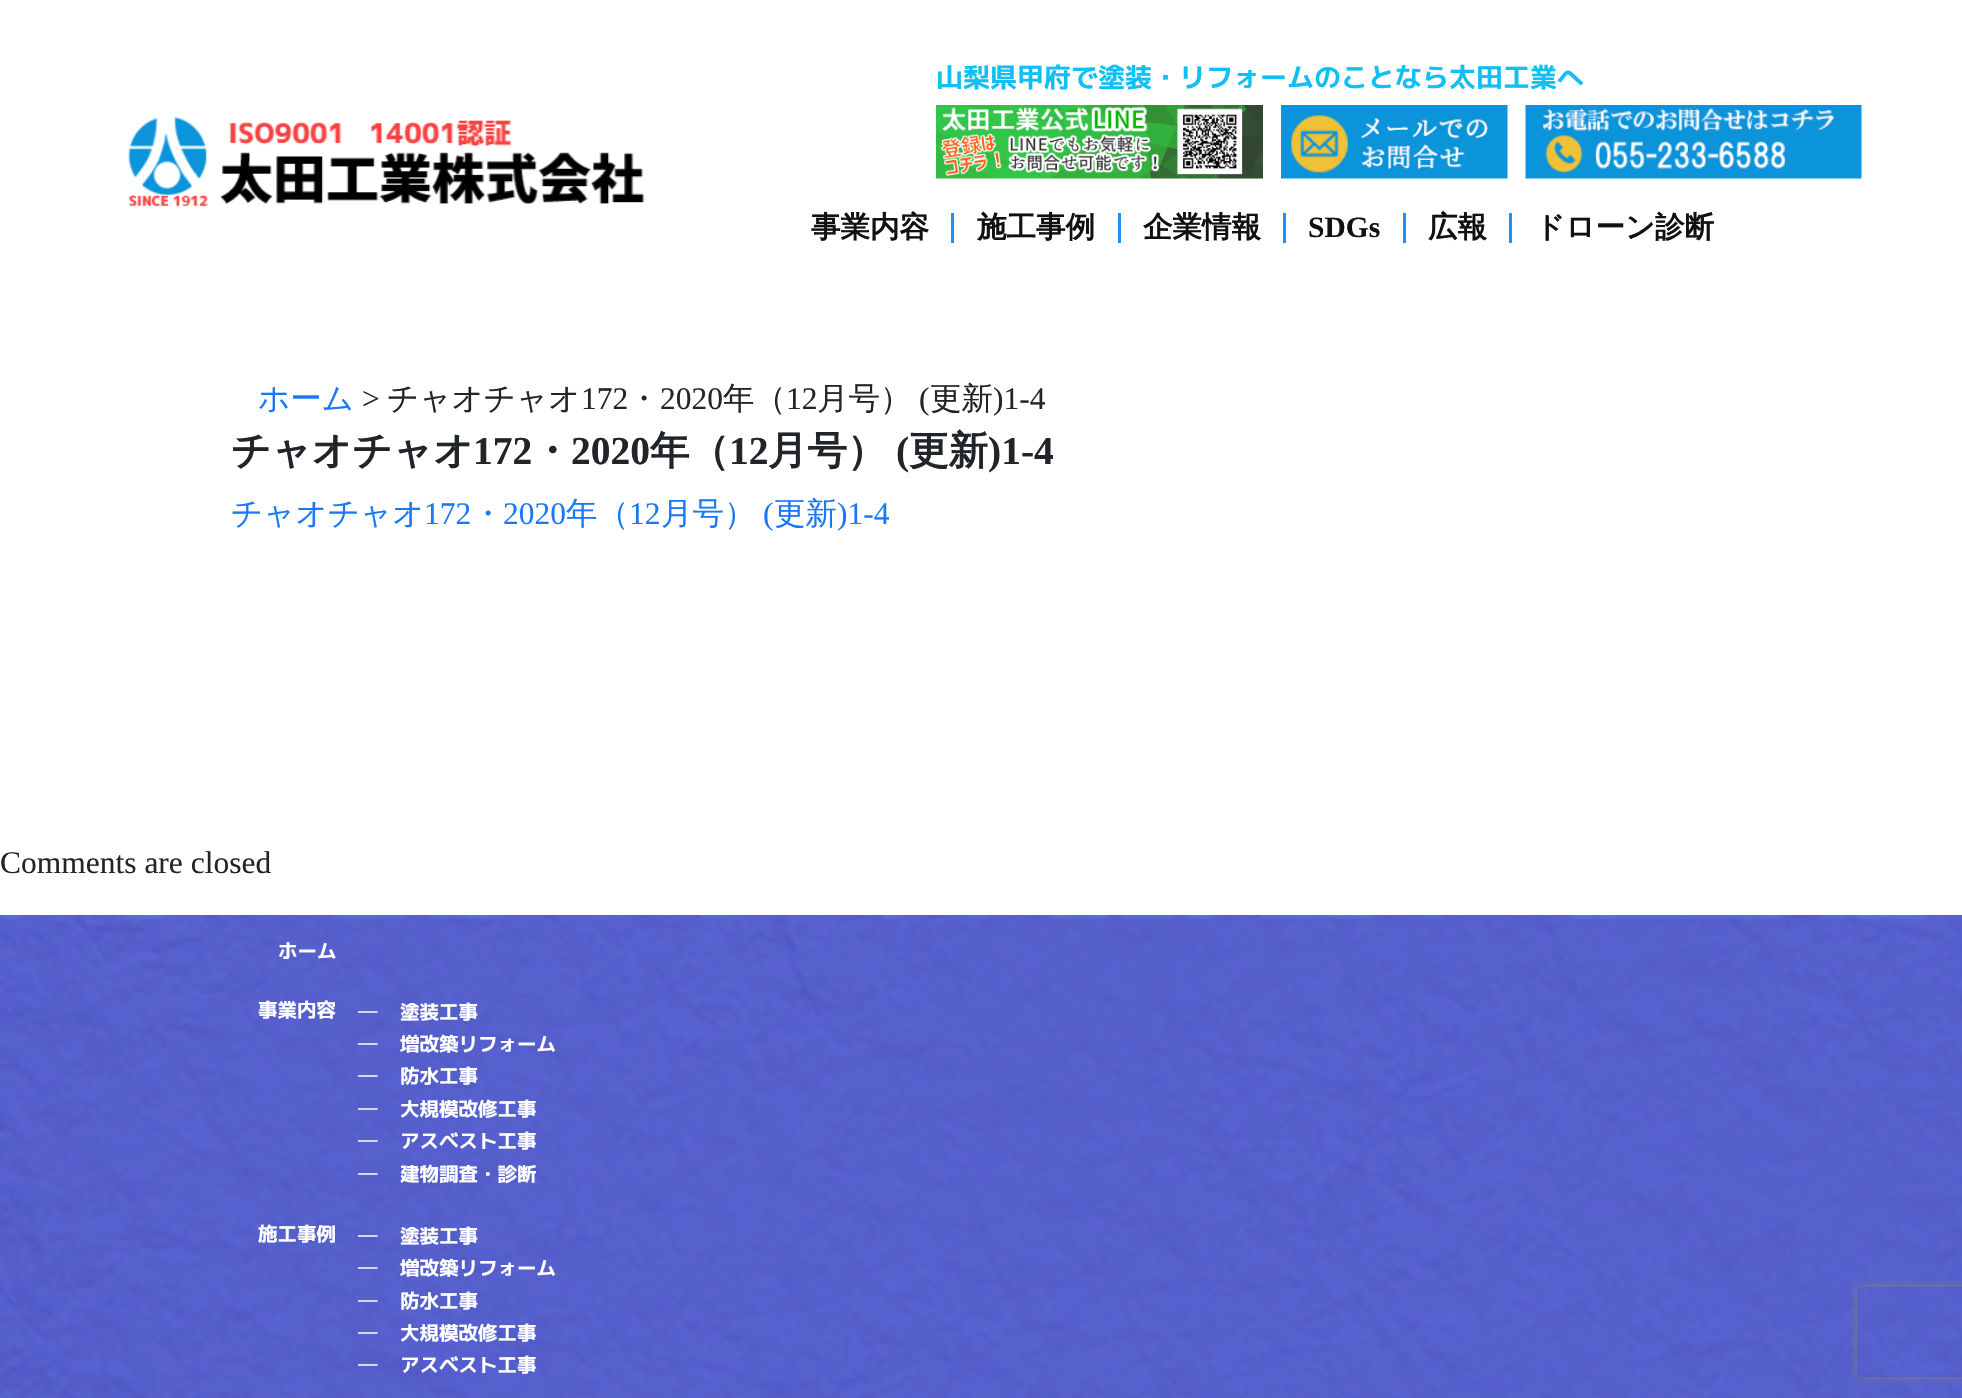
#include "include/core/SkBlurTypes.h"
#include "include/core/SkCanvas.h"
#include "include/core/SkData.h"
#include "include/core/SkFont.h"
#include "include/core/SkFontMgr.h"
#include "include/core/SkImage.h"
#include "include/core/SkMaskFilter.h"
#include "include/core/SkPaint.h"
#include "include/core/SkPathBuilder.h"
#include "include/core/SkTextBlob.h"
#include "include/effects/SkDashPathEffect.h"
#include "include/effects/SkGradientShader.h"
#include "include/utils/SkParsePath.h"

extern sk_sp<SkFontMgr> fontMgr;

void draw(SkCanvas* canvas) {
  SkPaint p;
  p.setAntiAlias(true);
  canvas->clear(SK_ColorWHITE);
  canvas->drawImageRect(SkImages::DeferredFromEncodedData(SkData::MakeFromFileName("images/1.png")), SkRect::MakeLTRB(936, 105, 1263, 179), SkSamplingOptions());
  canvas->drawImageRect(SkImages::DeferredFromEncodedData(SkData::MakeFromFileName("images/2.png")), SkRect::MakeLTRB(1281, 105, 1508, 179), SkSamplingOptions());
  canvas->drawImageRect(SkImages::DeferredFromEncodedData(SkData::MakeFromFileName("images/3.png")), SkRect::MakeLTRB(1525, 105, 1862, 179), SkSamplingOptions());
  canvas->drawImageRect(SkImages::DeferredFromEncodedData(SkData::MakeFromFileName("images/4.png")), SkRect::MakeLTRB(128, 117, 645, 207), SkSamplingOptions());
  p.setColor(SkColorSetRGB(30, 144, 255));
  canvas->drawRect(SkRect::MakeLTRB(951, 213, 954, 243), p);
  canvas->drawRect(SkRect::MakeLTRB(1118, 213, 1121, 243), p);
  canvas->drawRect(SkRect::MakeLTRB(1283, 213, 1286, 243), p);
  canvas->drawRect(SkRect::MakeLTRB(1403, 213, 1406, 243), p);
  canvas->drawRect(SkRect::MakeLTRB(1509, 213, 1512, 243), p);
  canvas->drawImageRect(SkImages::DeferredFromEncodedData(SkData::MakeFromFileName("images/5.png")), SkRect::MakeLTRB(0, 915, 1962, 1398), SkSamplingOptions());
  canvas->save();
  canvas->clipPath(SkPathBuilder(SkPathFillType::kEvenOdd).moveTo(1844, 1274).lineTo(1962, 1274).lineTo(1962, 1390).lineTo(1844, 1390).close().moveTo(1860, 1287).lineTo(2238, 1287).cubicTo(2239.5f, 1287, 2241, 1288.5f, 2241, 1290).lineTo(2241, 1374).cubicTo(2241, 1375.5f, 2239.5f, 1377, 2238, 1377).lineTo(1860, 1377).cubicTo(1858.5f, 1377, 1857, 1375.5f, 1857, 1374).lineTo(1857, 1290).cubicTo(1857, 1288.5f, 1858.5f, 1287, 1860, 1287).close().detach(), true);
  p.setColor(SkColorSetRGB(128, 128, 128));
  p.setMaskFilter(SkMaskFilter::MakeBlur(kNormal_SkBlurStyle, 4));
  canvas->drawRoundRect(SkRect::MakeLTRB(1857, 1287, 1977, 1377), 3, 3, p);
  p.setMaskFilter(nullptr);
  canvas->restore();
  SkFont font1(fontMgr->matchFamilyStyle("M PLUS 1p", SkFontStyle::Bold()), 27);
  font1.setSubpixel(true);
  p.setColor(SkColorSetRGB(16, 191, 243));
  canvas->drawString("山梨県甲府で塗装・リフォームのことなら太田工業へ", 936, 87, font1, p);
  SkFont font2(fontMgr->matchFamilyStyle("WenQuanYi Zen Hei", SkFontStyle::Bold()), 29.5f);
  font2.setSubpixel(true);
  p.setColor(SkColorSetRGB(17, 17, 17));
  canvas->drawString("事業内容", 811, 237, font2, p);
  canvas->drawString("施工事例", 977, 237, font2, p);
  canvas->drawString("企業情報", 1143, 237, font2, p);
  SkFont font3(fontMgr->matchFamilyStyle("Liberation Serif", SkFontStyle::Bold()), 29.5f);
  font3.setSubpixel(true);
  canvas->drawString("SDGs", 1308, 237, font3, p);
  canvas->drawString("広報", 1428, 237, font2, p);
  canvas->drawString("ドローン診断", 1535, 237, font2, p);
  SkFont font4(fontMgr->matchFamilyStyle("WenQuanYi Zen Hei", SkFontStyle(500, SkFontStyle::kNormal_Width, SkFontStyle::kUpright_Slant)), 31.5f);
  font4.setSubpixel(true);
  p.setColor(SkColorSetRGB(25, 120, 249));
  canvas->drawString("ホーム", 258, 409, font4, p);
  SkFont font5(fontMgr->matchFamilyStyle("Liberation Serif", SkFontStyle::Normal()), 31.5f);
  font5.setSubpixel(true);
  p.setColor(SkColorSetRGB(33, 37, 41));
  canvas->drawString(">", 362, 409, font5, p);
  canvas->drawString("チャオチャオ", 387, 409, font4, p);
  canvas->drawString("172", 581, 409, font5, p);
  canvas->drawString("・", 628, 409, font4, p);
  canvas->drawString("2020", 660, 409, font5, p);
  canvas->drawString("年（", 723, 409, font4, p);
  canvas->drawString("12", 786, 409, font5, p);
  canvas->drawString("月号）", 817, 409, font4, p);
  canvas->drawString("(", 919, 409, font5, p);
  canvas->drawString("更新", 930, 409, font4, p);
  canvas->drawString(")1-4", 993, 409, font5, p);
  SkFont font6(fontMgr->matchFamilyStyle("WenQuanYi Zen Hei", SkFontStyle::Bold()), 39.5f);
  font6.setSubpixel(true);
  canvas->drawString("チャオチャオ", 231, 464, font6, p);
  SkFont font7(fontMgr->matchFamilyStyle("Liberation Serif", SkFontStyle::Bold()), 39.5f);
  font7.setSubpixel(true);
  canvas->drawString("172", 473, 464, font7, p);
  canvas->drawString("・", 532, 464, font6, p);
  canvas->drawString("2020", 571, 464, font7, p);
  canvas->drawString("年（", 650, 464, font6, p);
  canvas->drawString("12", 729, 464, font7, p);
  canvas->drawString("月号）", 768, 464, font6, p);
  canvas->drawString("(", 896, 464, font7, p);
  canvas->drawString("更新", 909, 464, font6, p);
  canvas->drawString(")1-4", 988, 464, font7, p);
  p.setColor(SkColorSetRGB(25, 120, 249));
  canvas->drawString("チャオチャオ", 231, 524, font4, p);
  canvas->drawString("172", 424, 524, font5, p);
  canvas->drawString("・", 472, 524, font4, p);
  canvas->drawString("2020", 503, 524, font5, p);
  canvas->drawString("年（", 566, 524, font4, p);
  canvas->drawString("12", 629, 524, font5, p);
  canvas->drawString("月号）", 661, 524, font4, p);
  canvas->drawString("(", 763, 524, font5, p);
  canvas->drawString("更新", 774, 524, font4, p);
  canvas->drawString(")1-4", 837, 524, font5, p);
  p.setColor(SkColorSetRGB(33, 37, 41));
  canvas->drawString("Comments are closed", 0, 873, font5, p);
  SkFont font8(fontMgr->matchFamilyStyle("M PLUS 1p", SkFontStyle::Bold()), 19.5f);
  font8.setSubpixel(true);
  p.setColor(SK_ColorWHITE);
  canvas->drawString("ホーム", 278, 958, font8, p);
  canvas->drawString("事業内容", 258, 1017, font8, p);
  SkFont font9(fontMgr->matchFamilyStyle("M PLUS 1p", SkFontStyle::Normal()), 19.5f);
  font9.setSubpixel(true);
  canvas->drawString("―", 358, 1019, font9, p);
  canvas->drawString("塗装工事", 400, 1019, font8, p);
  canvas->drawString("―", 358, 1051, font9, p);
  canvas->drawString("増改築リフォーム", 400, 1051, font8, p);
  canvas->drawString("―", 358, 1083, font9, p);
  canvas->drawString("防水工事", 400, 1083, font8, p);
  canvas->drawString("―", 358, 1116, font9, p);
  canvas->drawString("大規模改修工事", 400, 1116, font8, p);
  canvas->drawString("―", 358, 1148, font9, p);
  canvas->drawString("アスベスト工事", 400, 1148, font8, p);
  canvas->drawString("―", 358, 1181, font9, p);
  canvas->drawString("建物調査・診断", 400, 1181, font8, p);
  canvas->drawString("施工事例", 258, 1241, font8, p);
  canvas->drawString("―", 358, 1243, font9, p);
  canvas->drawString("塗装工事", 400, 1243, font8, p);
  canvas->drawString("―", 358, 1275, font9, p);
  canvas->drawString("増改築リフォーム", 400, 1275, font8, p);
  canvas->drawString("―", 358, 1308, font9, p);
  canvas->drawString("防水工事", 400, 1308, font8, p);
  canvas->drawString("―", 358, 1340, font9, p);
  canvas->drawString("大規模改修工事", 400, 1340, font8, p);
  canvas->drawString("―", 358, 1372, font9, p);
  canvas->drawString("アスベスト工事", 400, 1372, font8, p);
}
